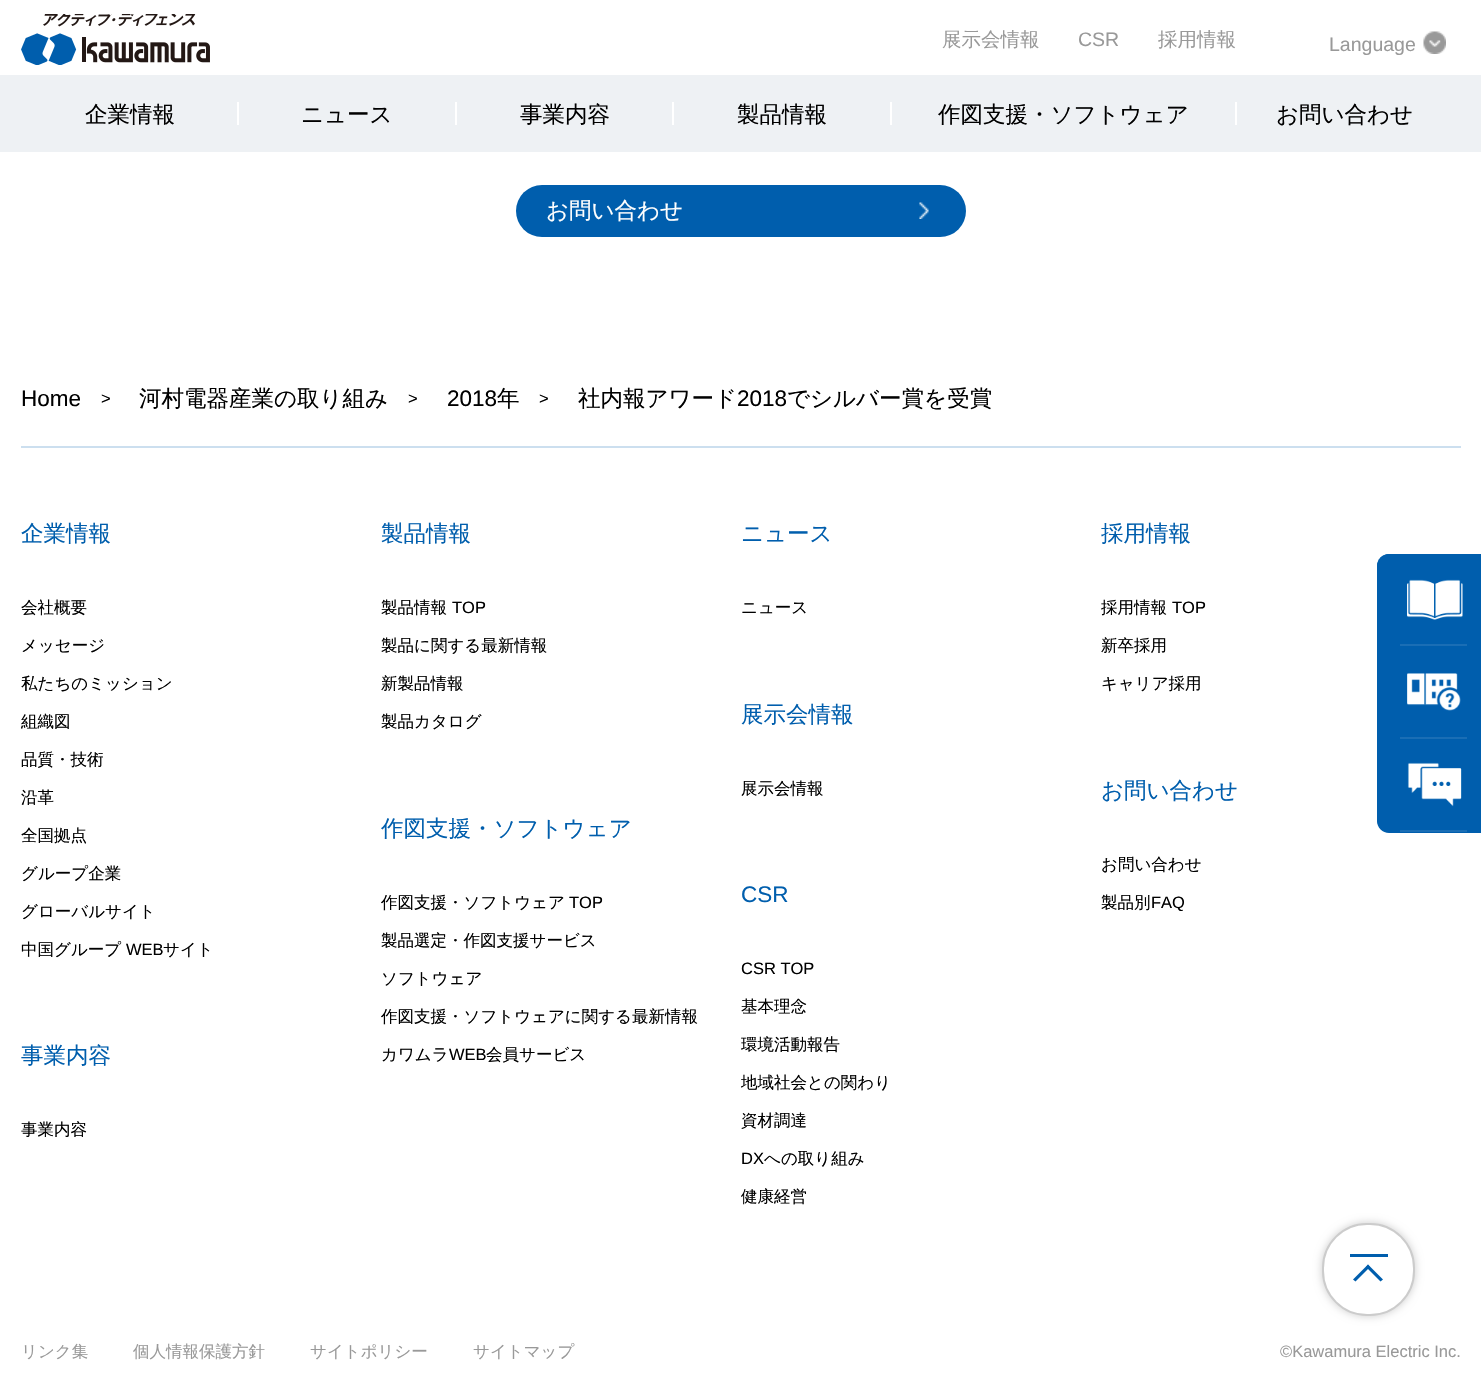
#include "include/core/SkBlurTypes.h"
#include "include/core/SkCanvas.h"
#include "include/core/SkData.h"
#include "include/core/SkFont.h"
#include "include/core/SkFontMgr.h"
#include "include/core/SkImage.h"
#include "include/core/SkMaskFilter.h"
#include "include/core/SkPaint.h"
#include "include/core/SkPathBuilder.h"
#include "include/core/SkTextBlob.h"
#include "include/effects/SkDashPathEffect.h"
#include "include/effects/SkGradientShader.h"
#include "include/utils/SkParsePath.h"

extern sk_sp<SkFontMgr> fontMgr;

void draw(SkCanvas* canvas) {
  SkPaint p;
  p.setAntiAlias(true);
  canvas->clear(SK_ColorWHITE);
  canvas->drawImageRect(SkImages::DeferredFromEncodedData(SkData::MakeFromFileName("images/1.png")), SkRect::MakeLTRB(21, 14, 210, 65), SkSamplingOptions());
  canvas->drawImageRect(SkImages::DeferredFromEncodedData(SkData::MakeFromFileName("images/2.png")), SkRect::MakeLTRB(1423, 31, 1446, 54), SkSamplingOptions());
  p.setColor(SkColorSetRGB(238, 241, 244));
  canvas->drawRect(SkRect::MakeLTRB(0, 75, 1481, 152), p);
  p.setColor(SK_ColorWHITE);
  canvas->drawRect(SkRect::MakeLTRB(237, 102, 239, 125), p);
  canvas->drawRect(SkRect::MakeLTRB(455, 102, 457, 125), p);
  canvas->drawRect(SkRect::MakeLTRB(672, 102, 674, 125), p);
  canvas->drawRect(SkRect::MakeLTRB(890, 102, 892, 125), p);
  canvas->drawRect(SkRect::MakeLTRB(1235, 102, 1237, 125), p);
  p.setColor(SkColorSetRGB(0, 94, 173));
  canvas->drawRoundRect(SkRect::MakeLTRB(516, 185, 966, 237), 26, 26, p);
  canvas->drawImageRect(SkImages::DeferredFromEncodedData(SkData::MakeFromFileName("images/3.png")), SkRect::MakeLTRB(919, 202, 929, 219), SkSamplingOptions());
  canvas->drawPath(SkPathBuilder().moveTo(1389, 554).lineTo(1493, 554).lineTo(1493, 831).lineTo(1389, 831).cubicTo(1382.5f, 831, 1377, 825.5f, 1377, 819).lineTo(1377, 566).cubicTo(1377, 559.5f, 1382.5f, 554, 1389, 554).close().detach(), p);
  canvas->drawPath(SkPathBuilder().moveTo(1389, 554).lineTo(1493, 554).lineTo(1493, 647).lineTo(1377, 647).lineTo(1377, 566).cubicTo(1377, 559.5f, 1382.5f, 554, 1389, 554).close().detach(), p);
  canvas->drawImageRect(SkImages::DeferredFromEncodedData(SkData::MakeFromFileName("images/4.png")), SkRect::MakeLTRB(1407, 579, 1463, 620), SkSamplingOptions());
  p.setColor(SkColorSetRGB(26, 110, 181));
  canvas->drawRect(SkRect::MakeLTRB(1400, 644, 1467, 646), p);
  canvas->drawImageRect(SkImages::DeferredFromEncodedData(SkData::MakeFromFileName("images/5.png")), SkRect::MakeLTRB(1407, 673, 1461, 711), SkSamplingOptions());
  canvas->drawRect(SkRect::MakeLTRB(1400, 737, 1467, 739), p);
  p.setColor(SkColorSetRGB(0, 94, 173));
  canvas->drawPath(SkPathBuilder().moveTo(1377, 740).lineTo(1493, 740).lineTo(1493, 833).lineTo(1389, 833).cubicTo(1382.5f, 833, 1377, 827.5f, 1377, 821).close().detach(), p);
  canvas->drawImageRect(SkImages::DeferredFromEncodedData(SkData::MakeFromFileName("images/6.png")), SkRect::MakeLTRB(1407, 762, 1462, 807), SkSamplingOptions());
  p.setColor(SkColorSetRGB(26, 110, 181));
  canvas->drawRect(SkRect::MakeLTRB(1400, 830, 1467, 832), p);
  p.setColor(SkColorSetRGB(204, 223, 239));
  canvas->drawRect(SkRect::MakeLTRB(21, 446, 1461, 448), p);
  p.setColor(SkColorSetARGB(51, 0, 0, 0));
  p.setMaskFilter(SkMaskFilter::MakeBlur(kNormal_SkBlurStyle, 4.5f));
  canvas->drawRoundRect(SkRect::MakeLTRB(1322, 1223, 1415, 1316), 45, 45, p);
  p.setMaskFilter(nullptr);
  p.setColor(SK_ColorWHITE);
  canvas->drawRoundRect(SkRect::MakeLTRB(1323, 1224, 1414, 1315), 44, 44, p);
  p.setStyle(SkPaint::kStroke_Style);
  p.setStrokeWidth(2);
  p.setColor(SkColorSetRGB(204, 204, 204));
  canvas->drawRoundRect(SkRect::MakeLTRB(1323, 1224, 1414, 1315), 44, 44, p);
  p.setStyle(SkPaint::kFill_Style);
  p.setColor(SkColorSetRGB(0, 94, 173));
  canvas->drawRect(SkRect::MakeLTRB(1350, 1254, 1388, 1257), p);
  canvas->drawPath(SkPathBuilder().moveTo(1353, 1279.5f).lineTo(1368, 1264.5f).lineTo(1370, 1267).lineTo(1355.5f, 1281.5f).close().detach(), p);
  canvas->drawPath(SkPathBuilder().moveTo(1366, 1267).lineTo(1368, 1264.5f).lineTo(1383, 1279.5f).lineTo(1380.5f, 1281.5f).close().detach(), p);
  SkFont font1(fontMgr->matchFamilyStyle("WenQuanYi Zen Hei", SkFontStyle(500, SkFontStyle::kNormal_Width, SkFontStyle::kUpright_Slant)), 19.5f);
  font1.setSubpixel(true);
  p.setColor(SkColorSetRGB(153, 153, 153));
  canvas->drawString("展示会情報", 942, 46, font1, p);
  SkFont font2(fontMgr->matchFamilyStyle("Liberation Sans", SkFontStyle::Normal()), 19.5f);
  font2.setSubpixel(true);
  canvas->drawString("CSR", 1078, 46, font2, p);
  canvas->drawString("採用情報", 1158, 46, font1, p);
  canvas->drawString("Language", 1329, 51, font2, p);
  SkFont font3(fontMgr->matchFamilyStyle("WenQuanYi Zen Hei", SkFontStyle(500, SkFontStyle::kNormal_Width, SkFontStyle::kUpright_Slant)), 22.5f);
  font3.setSubpixel(true);
  p.setColor(SK_ColorBLACK);
  canvas->drawString("企業情報", 85, 122, font3, p);
  canvas->drawString("ニュース", 301, 122, font3, p);
  canvas->drawString("事業内容", 520, 122, font3, p);
  canvas->drawString("製品情報", 737, 122, font3, p);
  canvas->drawString("作図支援・ソフトウェア", 938, 122, font3, p);
  canvas->drawString("お問い合わせ", 1276, 122, font3, p);
  p.setColor(SK_ColorWHITE);
  canvas->drawString("お問い合わせ", 546, 218, font3, p);
  SkFont font4(fontMgr->matchFamilyStyle("Liberation Sans", SkFontStyle::Normal()), 22.5f);
  font4.setSubpixel(true);
  p.setColor(SK_ColorBLACK);
  canvas->drawString("Home", 21, 406, font4, p);
  SkFont font5(fontMgr->matchFamilyStyle("Liberation Sans", SkFontStyle::Normal()), 16.5f);
  font5.setSubpixel(true);
  canvas->drawString(">", 101, 404, font5, p);
  canvas->drawString("河村電器産業の取り組み", 139, 406, font3, p);
  canvas->drawString(">", 408, 404, font5, p);
  canvas->drawString("2018", 447, 406, font4, p);
  canvas->drawString("年", 497, 406, font3, p);
  canvas->drawString(">", 539, 404, font5, p);
  canvas->drawString("社内報アワード", 578, 406, font3, p);
  canvas->drawString("2018", 737, 406, font4, p);
  canvas->drawString("でシルバー賞を受賞", 787, 406, font3, p);
  p.setColor(SkColorSetRGB(0, 94, 173));
  canvas->drawString("企業情報", 21, 541, font3, p);
  SkFont font6(fontMgr->matchFamilyStyle("WenQuanYi Zen Hei", SkFontStyle(500, SkFontStyle::kNormal_Width, SkFontStyle::kUpright_Slant)), 16.5f);
  font6.setSubpixel(true);
  p.setColor(SK_ColorBLACK);
  canvas->drawString("会社概要", 21, 613, font6, p);
  canvas->drawString("メッセージ", 21, 651, font6, p);
  canvas->drawString("私たちのミッション", 21, 689, font6, p);
  canvas->drawString("組織図", 21, 727, font6, p);
  canvas->drawString("品質・技術", 21, 765, font6, p);
  canvas->drawString("沿革", 21, 803, font6, p);
  canvas->drawString("全国拠点", 21, 841, font6, p);
  canvas->drawString("グループ企業", 21, 879, font6, p);
  canvas->drawString("グローバルサイト", 21, 917, font6, p);
  canvas->drawString("中国グループ", 21, 955, font6, p);
  canvas->drawString("WEB", 126, 955, font5, p);
  canvas->drawString("サイト", 163, 955, font6, p);
  p.setColor(SkColorSetRGB(0, 94, 173));
  canvas->drawString("事業内容", 21, 1063, font3, p);
  p.setColor(SK_ColorBLACK);
  canvas->drawString("事業内容", 21, 1135, font6, p);
  p.setColor(SkColorSetRGB(0, 94, 173));
  canvas->drawString("製品情報", 381, 541, font3, p);
  p.setColor(SK_ColorBLACK);
  canvas->drawString("製品情報", 381, 613, font6, p);
  canvas->drawString("TOP", 452, 613, font5, p);
  canvas->drawString("製品に関する最新情報", 381, 651, font6, p);
  canvas->drawString("新製品情報", 381, 689, font6, p);
  canvas->drawString("製品カタログ", 381, 727, font6, p);
  p.setColor(SkColorSetRGB(0, 94, 173));
  canvas->drawString("作図支援・ソフトウェア", 381, 836, font3, p);
  p.setColor(SK_ColorBLACK);
  canvas->drawString("作図支援・ソフトウェア", 381, 908, font6, p);
  canvas->drawString("TOP", 569, 908, font5, p);
  canvas->drawString("製品選定・作図支援サービス", 381, 946, font6, p);
  canvas->drawString("ソフトウェア", 381, 984, font6, p);
  canvas->drawString("作図支援・ソフトウェアに関する最新情報", 381, 1022, font6, p);
  canvas->drawString("カワムラ", 381, 1060, font6, p);
  canvas->drawString("WEB", 449, 1060, font5, p);
  canvas->drawString("会員サービス", 486, 1060, font6, p);
  p.setColor(SkColorSetRGB(0, 94, 173));
  canvas->drawString("ニュース", 741, 541, font3, p);
  p.setColor(SK_ColorBLACK);
  canvas->drawString("ニュース", 741, 613, font6, p);
  p.setColor(SkColorSetRGB(0, 94, 173));
  canvas->drawString("展示会情報", 741, 722, font3, p);
  p.setColor(SK_ColorBLACK);
  canvas->drawString("展示会情報", 741, 794, font6, p);
  p.setColor(SkColorSetRGB(0, 94, 173));
  canvas->drawString("CSR", 741, 902, font4, p);
  p.setColor(SK_ColorBLACK);
  canvas->drawString("CSR TOP", 741, 974, font5, p);
  canvas->drawString("基本理念", 741, 1012, font6, p);
  canvas->drawString("環境活動報告", 741, 1050, font6, p);
  canvas->drawString("地域社会との関わり", 741, 1088, font6, p);
  canvas->drawString("資材調達", 741, 1126, font6, p);
  canvas->drawString("DX", 741, 1164, font5, p);
  canvas->drawString("への取り組み", 764, 1164, font6, p);
  canvas->drawString("健康経営", 741, 1202, font6, p);
  p.setColor(SkColorSetRGB(0, 94, 173));
  canvas->drawString("採用情報", 1101, 541, font3, p);
  p.setColor(SK_ColorBLACK);
  canvas->drawString("採用情報", 1101, 613, font6, p);
  canvas->drawString("TOP", 1172, 613, font5, p);
  canvas->drawString("新卒採用", 1101, 651, font6, p);
  canvas->drawString("キャリア採用", 1101, 689, font6, p);
  p.setColor(SkColorSetRGB(0, 94, 173));
  canvas->drawString("お問い合わせ", 1101, 798, font3, p);
  p.setColor(SK_ColorBLACK);
  canvas->drawString("お問い合わせ", 1101, 870, font6, p);
  canvas->drawString("製品別", 1101, 908, font6, p);
  canvas->drawString("FAQ", 1151, 908, font5, p);
  p.setColor(SkColorSetRGB(153, 153, 153));
  canvas->drawString("リンク集", 21, 1357, font6, p);
  canvas->drawString("個人情報保護方針", 133, 1357, font6, p);
  canvas->drawString("サイトポリシー", 310, 1357, font6, p);
  canvas->drawString("サイトマップ", 473, 1357, font6, p);
  canvas->drawString("©Kawamura Electric Inc.", 1280, 1357, font5, p);
}
